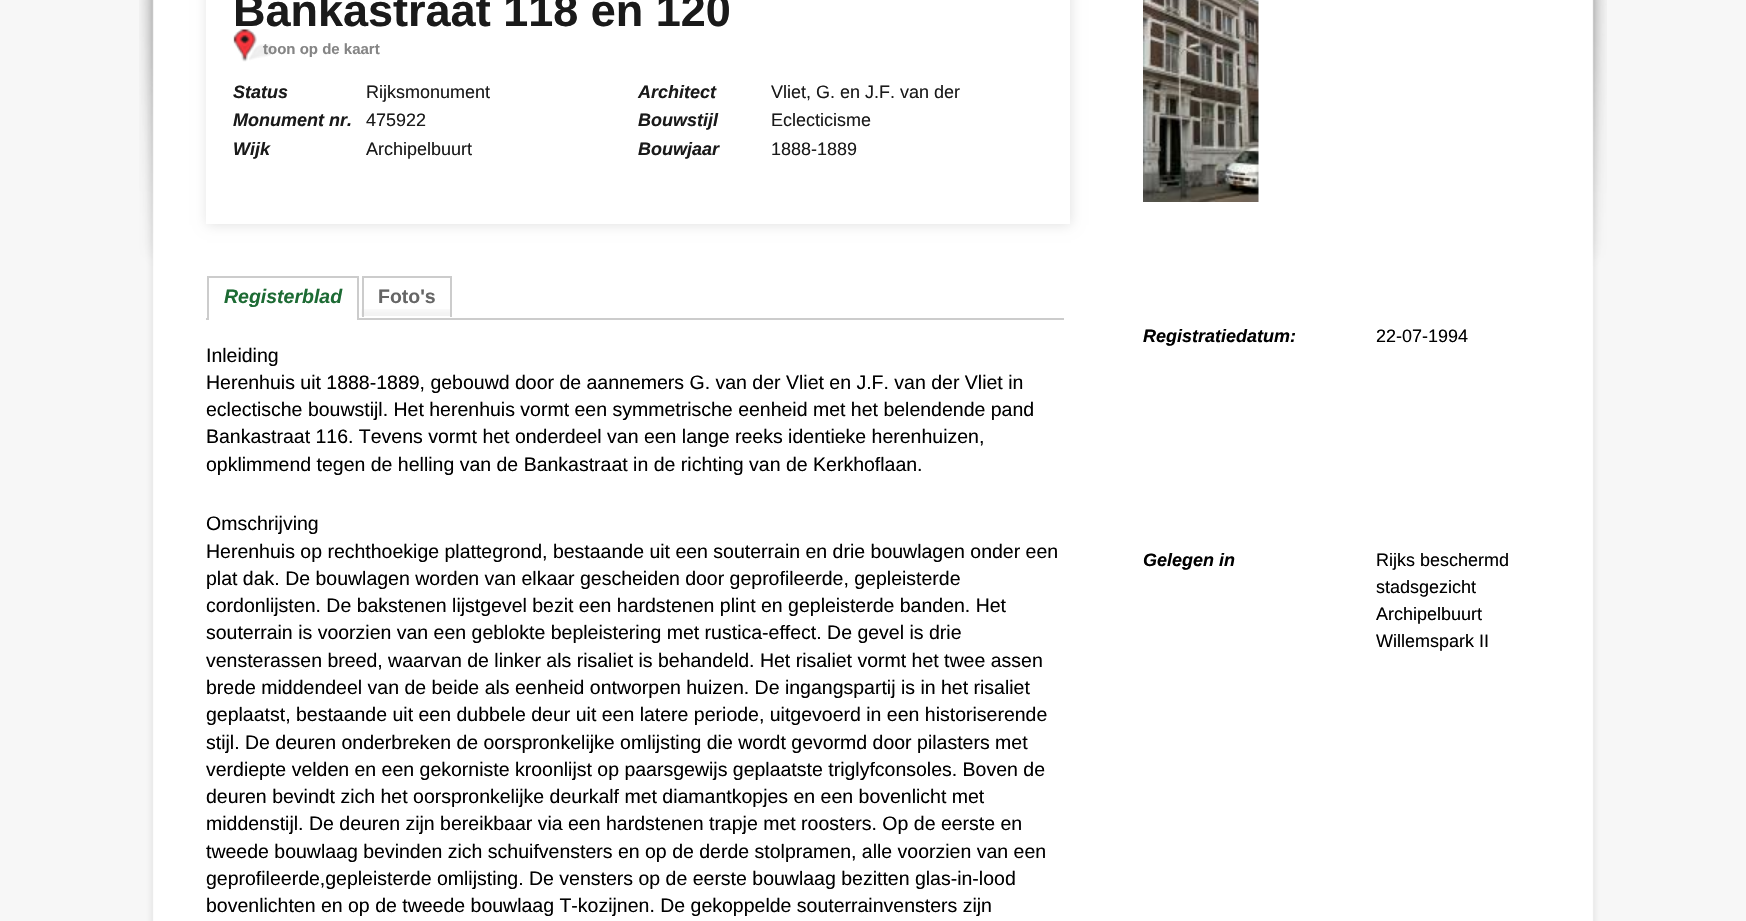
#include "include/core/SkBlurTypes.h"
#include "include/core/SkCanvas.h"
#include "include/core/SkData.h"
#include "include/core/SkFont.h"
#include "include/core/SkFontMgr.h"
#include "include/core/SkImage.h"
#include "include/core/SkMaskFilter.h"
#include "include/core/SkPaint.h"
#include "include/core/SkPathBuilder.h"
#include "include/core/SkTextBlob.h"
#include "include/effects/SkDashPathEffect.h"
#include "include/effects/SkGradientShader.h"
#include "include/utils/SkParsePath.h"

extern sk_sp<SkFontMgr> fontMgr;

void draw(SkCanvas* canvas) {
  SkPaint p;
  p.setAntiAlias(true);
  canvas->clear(SkColorSetRGB(247, 247, 247));
  canvas->drawImageRect(SkImages::DeferredFromEncodedData(SkData::MakeFromFileName("images/1.png")), SkRect::MakeLTRB(139, 0, 1607, 921), SkSamplingOptions());
  p.setColor(SkColorSetRGB(226, 226, 226));
  p.setMaskFilter(SkMaskFilter::MakeBlur(kNormal_SkBlurStyle, 6));
  canvas->drawRect(SkRect::MakeLTRB(207, -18, 1071, 225), p);
  p.setMaskFilter(nullptr);
  p.setColor(SK_ColorWHITE);
  canvas->drawRect(SkRect::MakeLTRB(206, 0, 1070, 224), p);
  canvas->drawImageRect(SkImages::DeferredFromEncodedData(SkData::MakeFromFileName("images/2.png")), SkRect::MakeLTRB(233, 29, 276, 62), SkSamplingOptions());
  p.setColor(SkColorSetRGB(204, 204, 204));
  canvas->drawRect(SkRect::MakeLTRB(206, 318, 1064, 320), p);
  p.setColor(SK_ColorWHITE);
  canvas->drawRect(SkRect::MakeLTRB(209, 318, 357, 320), p);
  p.setColor(SkColorSetRGB(204, 204, 204));
  canvas->drawRect(SkRect::MakeLTRB(207, 276, 359, 278), p);
  canvas->drawRect(SkRect::MakeLTRB(357, 276, 359, 320), p);
  canvas->drawRect(SkRect::MakeLTRB(207, 276, 209, 320), p);
  canvas->drawImageRect(SkImages::DeferredFromEncodedData(SkData::MakeFromFileName("images/3.png")), SkRect::MakeLTRB(361, 309, 450, 316), SkSamplingOptions());
  canvas->drawRect(SkRect::MakeLTRB(362, 276, 452, 278), p);
  canvas->drawRect(SkRect::MakeLTRB(450, 276, 452, 317), p);
  canvas->drawRect(SkRect::MakeLTRB(362, 276, 364, 317), p);
  canvas->drawImageRect(SkImages::DeferredFromEncodedData(SkData::MakeFromFileName("images/4.png")), SkRect::MakeLTRB(1143, 0, 1259, 202), SkSamplingOptions());
  SkFont font1(fontMgr->matchFamilyStyle("Liberation Sans", SkFontStyle::Bold()), 45);
  font1.setSubpixel(true);
  p.setColor(SkColorSetRGB(26, 26, 26));
  canvas->drawString("Bankastraat 118 en 120", 233, 26, font1, p);
  SkFont font2(fontMgr->matchFamilyStyle("Liberation Sans", SkFontStyle::Bold()), 15);
  font2.setSubpixel(true);
  p.setColor(SkColorSetRGB(133, 133, 133));
  canvas->drawString("toon op de kaart", 263, 54, font2, p);
  SkFont font3(fontMgr->matchFamilyStyle("Liberation Sans", SkFontStyle::BoldItalic()), 18);
  font3.setSubpixel(true);
  p.setColor(SkColorSetRGB(26, 26, 26));
  canvas->drawString("Status", 233, 98, font3, p);
  SkFont font4(fontMgr->matchFamilyStyle("Liberation Sans", SkFontStyle::Normal()), 18);
  font4.setSubpixel(true);
  canvas->drawString("Rijksmonument", 366, 98, font4, p);
  canvas->drawString("Architect", 638, 98, font3, p);
  canvas->drawString("Vliet, G. en J.F. van der", 771, 98, font4, p);
  canvas->drawString("Monument nr.", 233, 126, font3, p);
  canvas->drawString("475922", 366, 126, font4, p);
  canvas->drawString("Bouwstijl", 638, 126, font3, p);
  canvas->drawString("Eclecticisme", 771, 126, font4, p);
  canvas->drawString("Wijk", 233, 155, font3, p);
  canvas->drawString("Archipelbuurt", 366, 155, font4, p);
  canvas->drawString("Bouwjaar", 638, 155, font3, p);
  canvas->drawString("1888-1889", 771, 155, font4, p);
  SkFont font5(fontMgr->matchFamilyStyle("Liberation Sans", SkFontStyle::BoldItalic()), 19.5f);
  font5.setSubpixel(true);
  p.setColor(SkColorSetRGB(29, 107, 52));
  canvas->drawString("Registerblad", 224, 303, font5, p);
  SkFont font6(fontMgr->matchFamilyStyle("Liberation Sans", SkFontStyle::Bold()), 19.5f);
  font6.setSubpixel(true);
  p.setColor(SkColorSetRGB(102, 102, 102));
  canvas->drawString("Foto's", 378, 303, font6, p);
  SkFont font7(fontMgr->matchFamilyStyle("Liberation Sans", SkFontStyle::Normal()), 19.5f);
  font7.setSubpixel(true);
  p.setColor(SK_ColorBLACK);
  canvas->drawString("Inleiding", 206, 362, font7, p);
  canvas->drawString("Herenhuis uit 1888-1889, gebouwd door de aannemers G. van der Vliet en J.F. van der Vliet in", 206, 389, font7, p);
  canvas->drawString("eclectische bouwstijl. Het herenhuis vormt een symmetrische eenheid met het belendende pand", 206, 416, font7, p);
  canvas->drawString("Bankastraat 116. Tevens vormt het onderdeel van een lange reeks identieke herenhuizen,", 206, 443, font7, p);
  canvas->drawString("opklimmend tegen de helling van de Bankastraat in de richting van de Kerkhoflaan.", 206, 471, font7, p);
  canvas->drawString("Omschrijving", 206, 530, font7, p);
  canvas->drawString("Herenhuis op rechthoekige plattegrond, bestaande uit een souterrain en drie bouwlagen onder een", 206, 558, font7, p);
  canvas->drawString("plat dak. De bouwlagen worden van elkaar gescheiden door geprofileerde, gepleisterde", 206, 585, font7, p);
  canvas->drawString("cordonlijsten. De bakstenen lijstgevel bezit een hardstenen plint en gepleisterde banden. Het", 206, 612, font7, p);
  canvas->drawString("souterrain is voorzien van een geblokte bepleistering met rustica-effect. De gevel is drie", 206, 639, font7, p);
  canvas->drawString("vensterassen breed, waarvan de linker als risaliet is behandeld. Het risaliet vormt het twee assen", 206, 667, font7, p);
  canvas->drawString("brede middendeel van de beide als eenheid ontworpen huizen. De ingangspartij is in het risaliet", 206, 694, font7, p);
  canvas->drawString("geplaatst, bestaande uit een dubbele deur uit een latere periode, uitgevoerd in een historiserende", 206, 721, font7, p);
  canvas->drawString("stijl. De deuren onderbreken de oorspronkelijke omlijsting die wordt gevormd door pilasters met", 206, 749, font7, p);
  canvas->drawString("verdiepte velden en een gekorniste kroonlijst op paarsgewijs geplaatste triglyfconsoles. Boven de", 206, 776, font7, p);
  canvas->drawString("deuren bevindt zich het oorspronkelijke deurkalf met diamantkopjes en een bovenlicht met", 206, 803, font7, p);
  canvas->drawString("middenstijl. De deuren zijn bereikbaar via een hardstenen trapje met roosters. Op de eerste en", 206, 830, font7, p);
  canvas->drawString("tweede bouwlaag bevinden zich schuifvensters en op de derde stolpramen, alle voorzien van een", 206, 858, font7, p);
  canvas->drawString("geprofileerde,gepleisterde omlijsting. De vensters op de eerste bouwlaag bezitten glas-in-lood", 206, 885, font7, p);
  canvas->drawString("bovenlichten en op de tweede bouwlaag T-kozijnen. De gekoppelde souterrainvensters zijn", 206, 912, font7, p);
  canvas->drawString("Registratiedatum:", 1143, 342, font3, p);
  canvas->drawString("22-07-1994", 1376, 342, font4, p);
  canvas->drawString("Gelegen in", 1143, 566, font3, p);
  canvas->drawString("Rijks beschermd", 1376, 566, font4, p);
  canvas->drawString("stadsgezicht", 1376, 593, font4, p);
  canvas->drawString("Archipelbuurt", 1376, 620, font4, p);
  canvas->drawString("Willemspark II", 1376, 647, font4, p);
}
